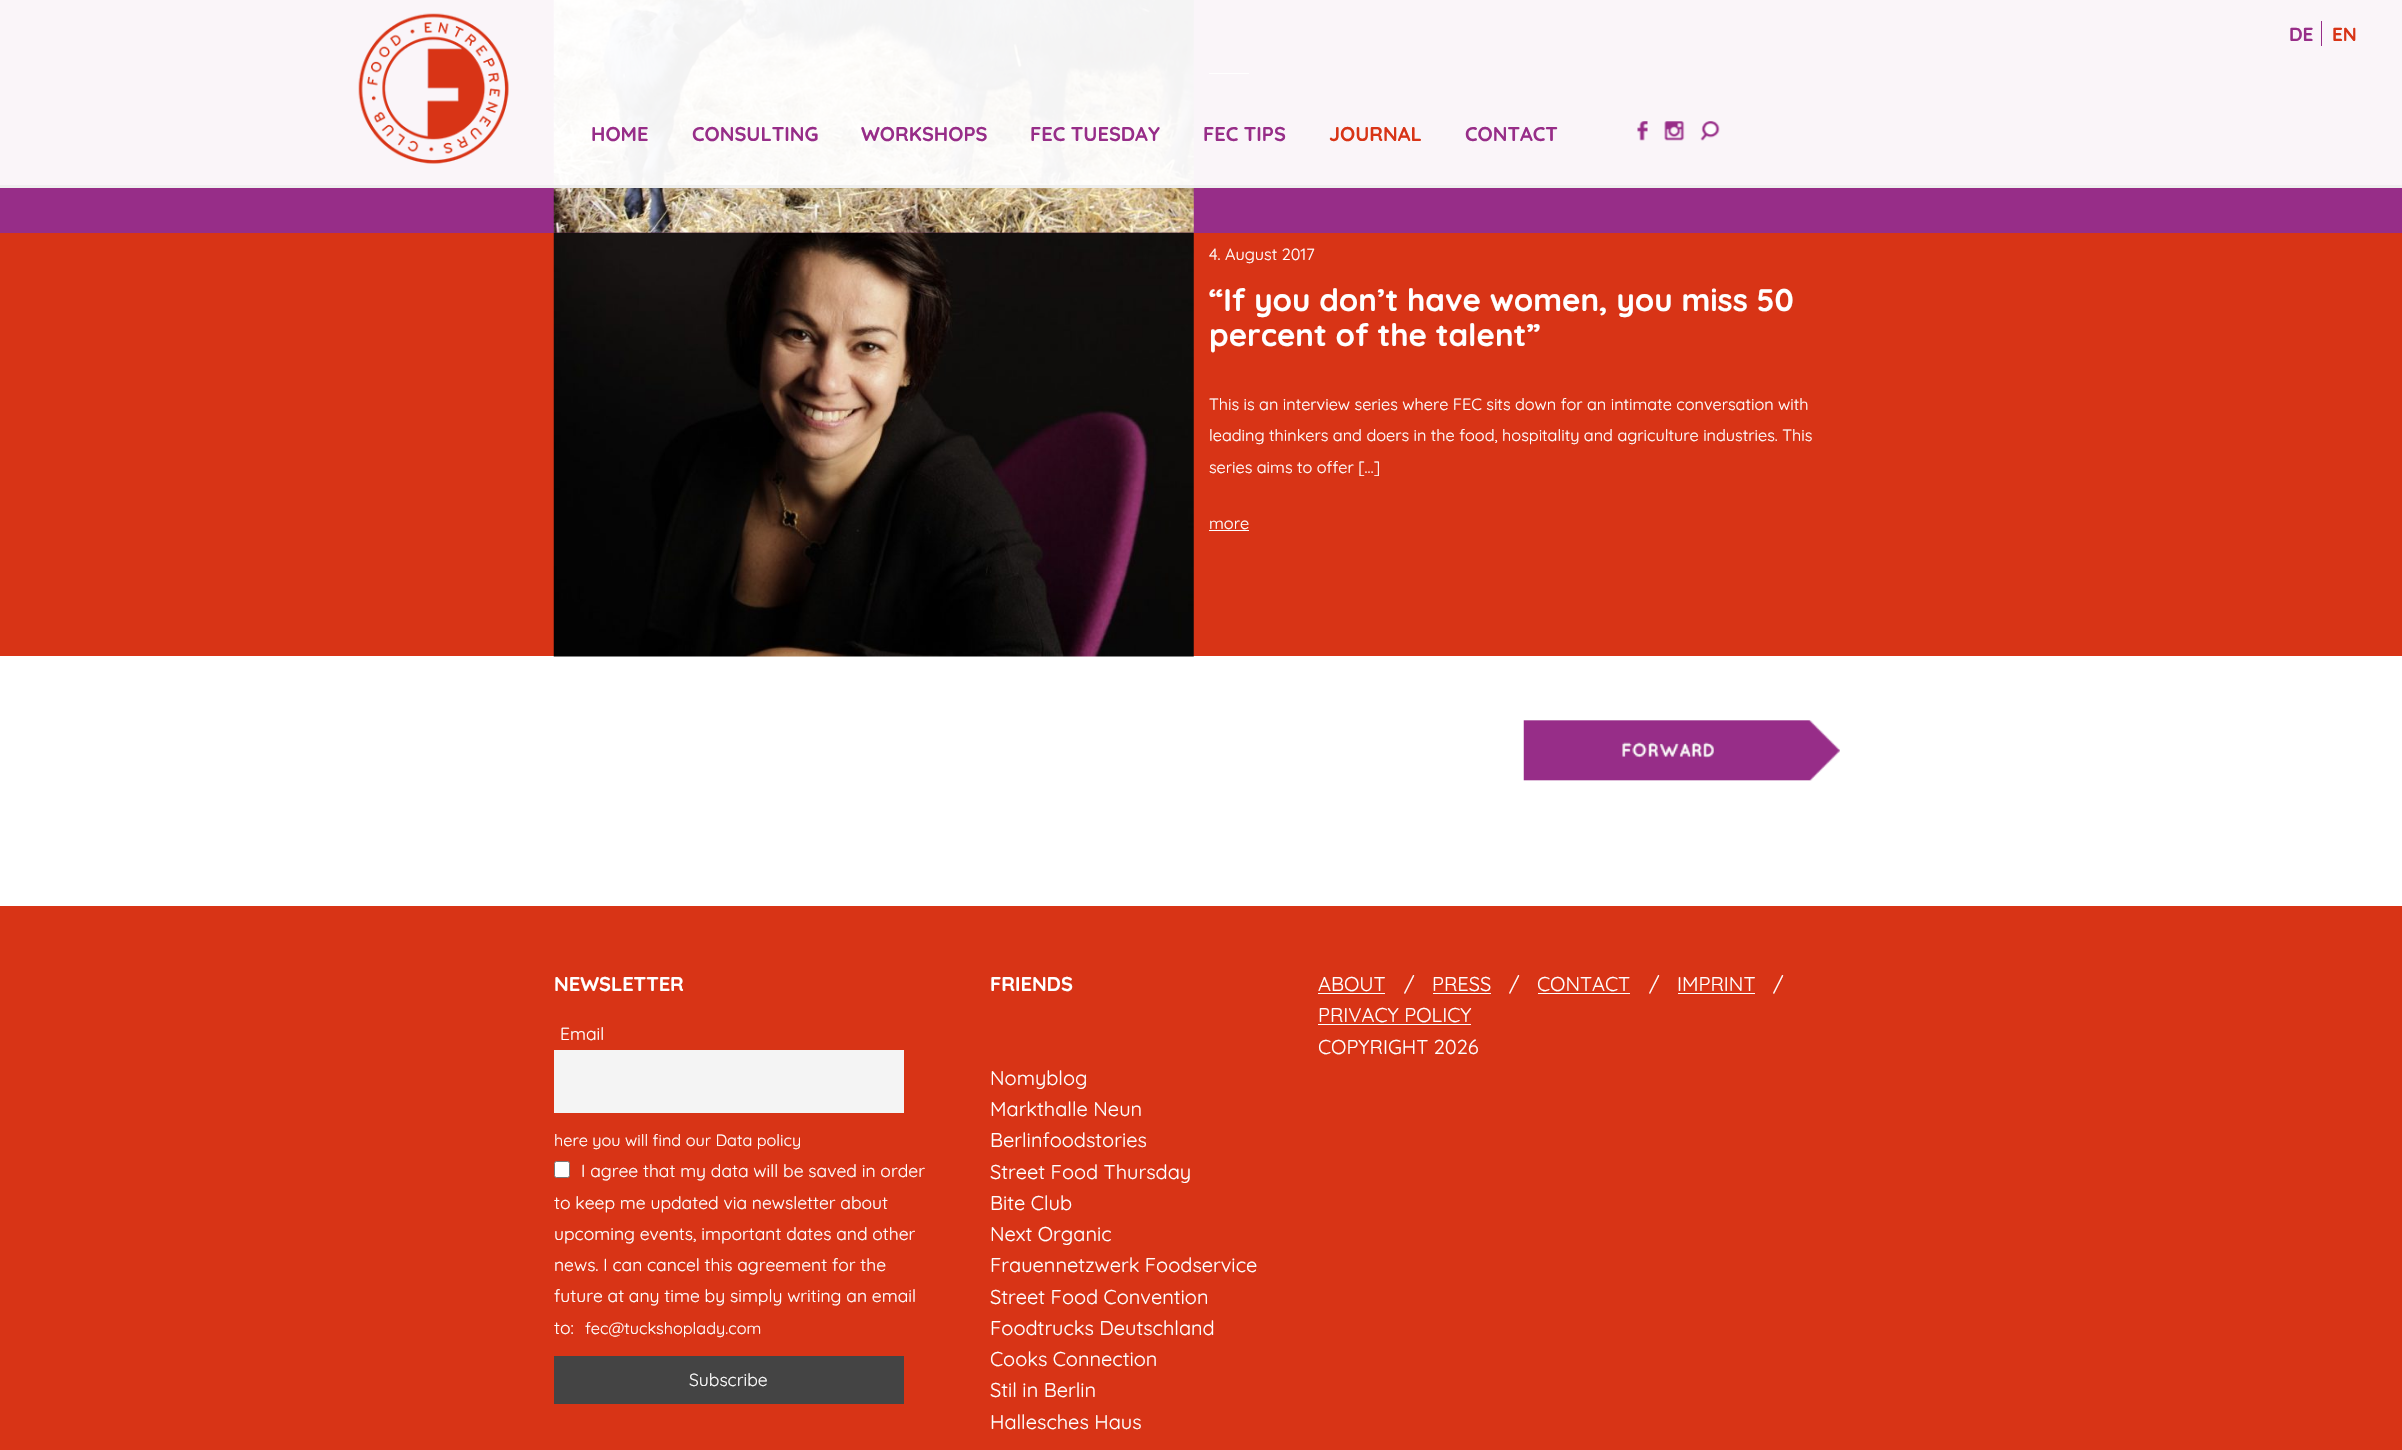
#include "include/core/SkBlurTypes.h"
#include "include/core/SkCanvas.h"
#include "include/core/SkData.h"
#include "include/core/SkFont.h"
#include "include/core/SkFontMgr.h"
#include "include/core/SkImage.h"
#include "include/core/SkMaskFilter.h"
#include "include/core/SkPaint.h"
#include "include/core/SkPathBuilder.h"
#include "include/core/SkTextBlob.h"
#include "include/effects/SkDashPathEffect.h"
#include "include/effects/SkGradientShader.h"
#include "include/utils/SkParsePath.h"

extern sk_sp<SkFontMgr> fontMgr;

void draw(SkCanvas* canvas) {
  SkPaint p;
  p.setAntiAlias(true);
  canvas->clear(SK_ColorWHITE);
  p.setColor(SkColorSetRGB(151, 45, 136));
  canvas->drawRect(SkRect::MakeLTRB(0, 0, 2402, 233), p);
  canvas->drawImageRect(SkImages::DeferredFromEncodedData(SkData::MakeFromFileName("images/1.png")), SkRect::MakeLTRB(553, 0, 1194, 233), SkSamplingOptions());
  p.setColor(SK_ColorWHITE);
  canvas->drawRect(SkRect::MakeLTRB(1209, 73, 1249, 74), p);
  p.setColor(SkColorSetARGB(242, 255, 255, 255));
  canvas->drawRect(SkRect::MakeLTRB(0, 0, 2402, 185), p);
  p.setColor(SkColorSetRGB(239, 239, 239));
  canvas->drawRect(SkRect::MakeLTRB(0, 185, 2402, 188), p);
  p.setColor(SkColorSetRGB(151, 45, 136));
  canvas->drawRect(SkRect::MakeLTRB(2321, 21, 2322, 46), p);
  canvas->drawImageRect(SkImages::DeferredFromEncodedData(SkData::MakeFromFileName("images/2.png")), SkRect::MakeLTRB(358, 13, 509, 164), SkSamplingOptions());
  canvas->drawImageRect(SkImages::DeferredFromEncodedData(SkData::MakeFromFileName("images/3.png")), SkRect::MakeLTRB(1637, 121, 1648, 141), SkSamplingOptions());
  canvas->drawImageRect(SkImages::DeferredFromEncodedData(SkData::MakeFromFileName("images/4.png")), SkRect::MakeLTRB(1664, 121, 1685, 141), SkSamplingOptions());
  canvas->drawImageRect(SkImages::DeferredFromEncodedData(SkData::MakeFromFileName("images/5.png")), SkRect::MakeLTRB(1700, 121, 1720, 141), SkSamplingOptions());
  p.setColor(SkColorSetRGB(216, 52, 22));
  canvas->drawRect(SkRect::MakeLTRB(0, 233, 2402, 656), p);
  canvas->drawImageRect(SkImages::DeferredFromEncodedData(SkData::MakeFromFileName("images/6.png")), SkRect::MakeLTRB(553, 232, 1194, 657), SkSamplingOptions());
  p.setColor(SK_ColorWHITE);
  canvas->drawRect(SkRect::MakeLTRB(1209, 530, 1249, 531), p);
  canvas->drawImageRect(SkImages::DeferredFromEncodedData(SkData::MakeFromFileName("images/7.png")), SkRect::MakeLTRB(1523, 720, 1840, 781), SkSamplingOptions());
  p.setColor(SkColorSetRGB(216, 52, 22));
  canvas->drawRect(SkRect::MakeLTRB(0, 906, 2402, 1450), p);
  p.setColor(SkColorSetRGB(244, 244, 244));
  canvas->drawRect(SkRect::MakeLTRB(554, 1050, 904, 1113), p);
  p.setColor(SK_ColorWHITE);
  canvas->drawRoundRect(SkRect::MakeLTRB(554.5f, 1161.5f, 569.5f, 1177.5f), 2, 2, p);
  p.setStyle(SkPaint::kStroke_Style);
  p.setStrokeWidth(1);
  p.setColor(SkColorSetRGB(118, 118, 118));
  canvas->drawRoundRect(SkRect::MakeLTRB(554.5f, 1161.5f, 569.5f, 1177.5f), 2, 2, p);
  p.setStyle(SkPaint::kFill_Style);
  p.setColor(SkColorSetRGB(68, 68, 68));
  canvas->drawRect(SkRect::MakeLTRB(554, 1356, 904, 1404), p);
  p.setColor(SK_ColorWHITE);
  canvas->drawRect(SkRect::MakeLTRB(1318, 993, 1385, 994), p);
  canvas->drawRect(SkRect::MakeLTRB(1433, 993, 1491, 994), p);
  canvas->drawRect(SkRect::MakeLTRB(1538, 993, 1630, 994), p);
  canvas->drawRect(SkRect::MakeLTRB(1678, 993, 1755, 994), p);
  canvas->drawRect(SkRect::MakeLTRB(1318, 1024, 1471, 1025), p);
  SkFont font1(fontMgr->matchFamilyStyle("Quicksand", SkFontStyle::Bold()), 19);
  font1.setSubpixel(true);
  p.setColor(SkColorSetRGB(151, 45, 136));
  canvas->drawString("DE", 2289, 41, font1, p);
  p.setColor(SkColorSetRGB(216, 52, 22));
  canvas->drawString("EN", 2332, 41, font1, p);
  SkFont font2(fontMgr->matchFamilyStyle("Quicksand", SkFontStyle::Bold()), 20);
  font2.setSubpixel(true);
  p.setColor(SkColorSetRGB(151, 45, 136));
  canvas->drawString("HOME", 591, 141, font2, p);
  canvas->drawString("CONSULTING", 692, 141, font2, p);
  canvas->drawString("WORKSHOPS", 861, 141, font2, p);
  canvas->drawString("FEC TUESDAY", 1030, 141, font2, p);
  canvas->drawString("FEC TIPS", 1203, 141, font2, p);
  p.setColor(SkColorSetRGB(216, 52, 22));
  canvas->drawString("JOURNAL", 1329, 141, font2, p);
  p.setColor(SkColorSetRGB(151, 45, 136));
  canvas->drawString("CONTACT", 1465, 141, font2, p);
  SkFont font3(fontMgr->matchFamilyStyle("Quicksand", SkFontStyle::Normal()), 16.25f);
  font3.setSubpixel(true);
  p.setColor(SK_ColorWHITE);
  canvas->drawString("4. August 2017", 1209, 260, font3, p);
  SkFont font4(fontMgr->matchFamilyStyle("Quicksand", SkFontStyle::Bold()), 31.25f);
  font4.setSubpixel(true);
  canvas->drawString("“If you don’t have women, you miss 50", 1209, 311, font4, p);
  canvas->drawString("percent of the talent”", 1209, 346, font4, p);
  canvas->drawString("This is an interview series where FEC sits down for an intimate conversation with", 1209, 410, font3, p);
  canvas->drawString("leading thinkers and doers in the food, hospitality and agriculture industries. This", 1209, 441, font3, p);
  canvas->drawString("series aims to offer […]", 1209, 473, font3, p);
  canvas->drawString("more", 1209, 529, font3, p);
  canvas->drawString("NEWSLETTER", 554, 991, font2, p);
  SkFont font5(fontMgr->matchFamilyStyle("Quicksand", SkFontStyle::Normal()), 17.5f);
  font5.setSubpixel(true);
  canvas->drawString("Email", 560, 1040, font5, p);
  canvas->drawString("here you will find our Data policy", 554, 1146, font3, p);
  canvas->drawString("I agree that my data will be saved in order", 581, 1177, font5, p);
  canvas->drawString("to keep me updated via newsletter about", 554, 1209, font5, p);
  canvas->drawString("upcoming events, important dates and other", 554, 1240, font5, p);
  canvas->drawString("news. I can cancel this agreement for the", 554, 1271, font5, p);
  canvas->drawString("future at any time by simply writing an email", 554, 1302, font5, p);
  canvas->drawString("to:", 554, 1334, font5, p);
  canvas->drawString("fec@tuckshoplady.com", 585, 1334, font3, p);
  canvas->drawString("Subscribe", 689, 1386, font5, p);
  canvas->drawString("FRIENDS", 990, 991, font2, p);
  SkFont font6(fontMgr->matchFamilyStyle("Quicksand", SkFontStyle::Normal()), 20);
  font6.setSubpixel(true);
  canvas->drawString("Nomyblog", 990, 1085, font6, p);
  canvas->drawString("Markthalle Neun", 990, 1116, font6, p);
  canvas->drawString("Berlinfoodstories", 990, 1147, font6, p);
  canvas->drawString("Street Food Thursday", 990, 1179, font6, p);
  canvas->drawString("Bite Club", 990, 1210, font6, p);
  canvas->drawString("Next Organic", 990, 1241, font6, p);
  canvas->drawString("Frauennetzwerk Foodservice", 990, 1272, font6, p);
  canvas->drawString("Street Food Convention", 990, 1304, font6, p);
  canvas->drawString("Foodtrucks Deutschland", 990, 1335, font6, p);
  canvas->drawString("Cooks Connection", 990, 1366, font6, p);
  canvas->drawString("Stil in Berlin", 990, 1397, font6, p);
  canvas->drawString("Hallesches Haus", 990, 1429, font6, p);
  canvas->drawString("ABOUT", 1318, 991, font6, p);
  canvas->drawString("/", 1404, 991, font6, p);
  canvas->drawString("PRESS", 1432, 991, font6, p);
  canvas->drawString("/", 1509, 991, font6, p);
  canvas->drawString("CONTACT", 1537, 991, font6, p);
  canvas->drawString("/", 1649, 991, font6, p);
  canvas->drawString("IMPRINT", 1677, 991, font6, p);
  canvas->drawString("/", 1773, 991, font6, p);
  canvas->drawString("PRIVACY POLICY", 1318, 1022, font6, p);
  canvas->drawString("COPYRIGHT 2026", 1318, 1054, font6, p);
}
